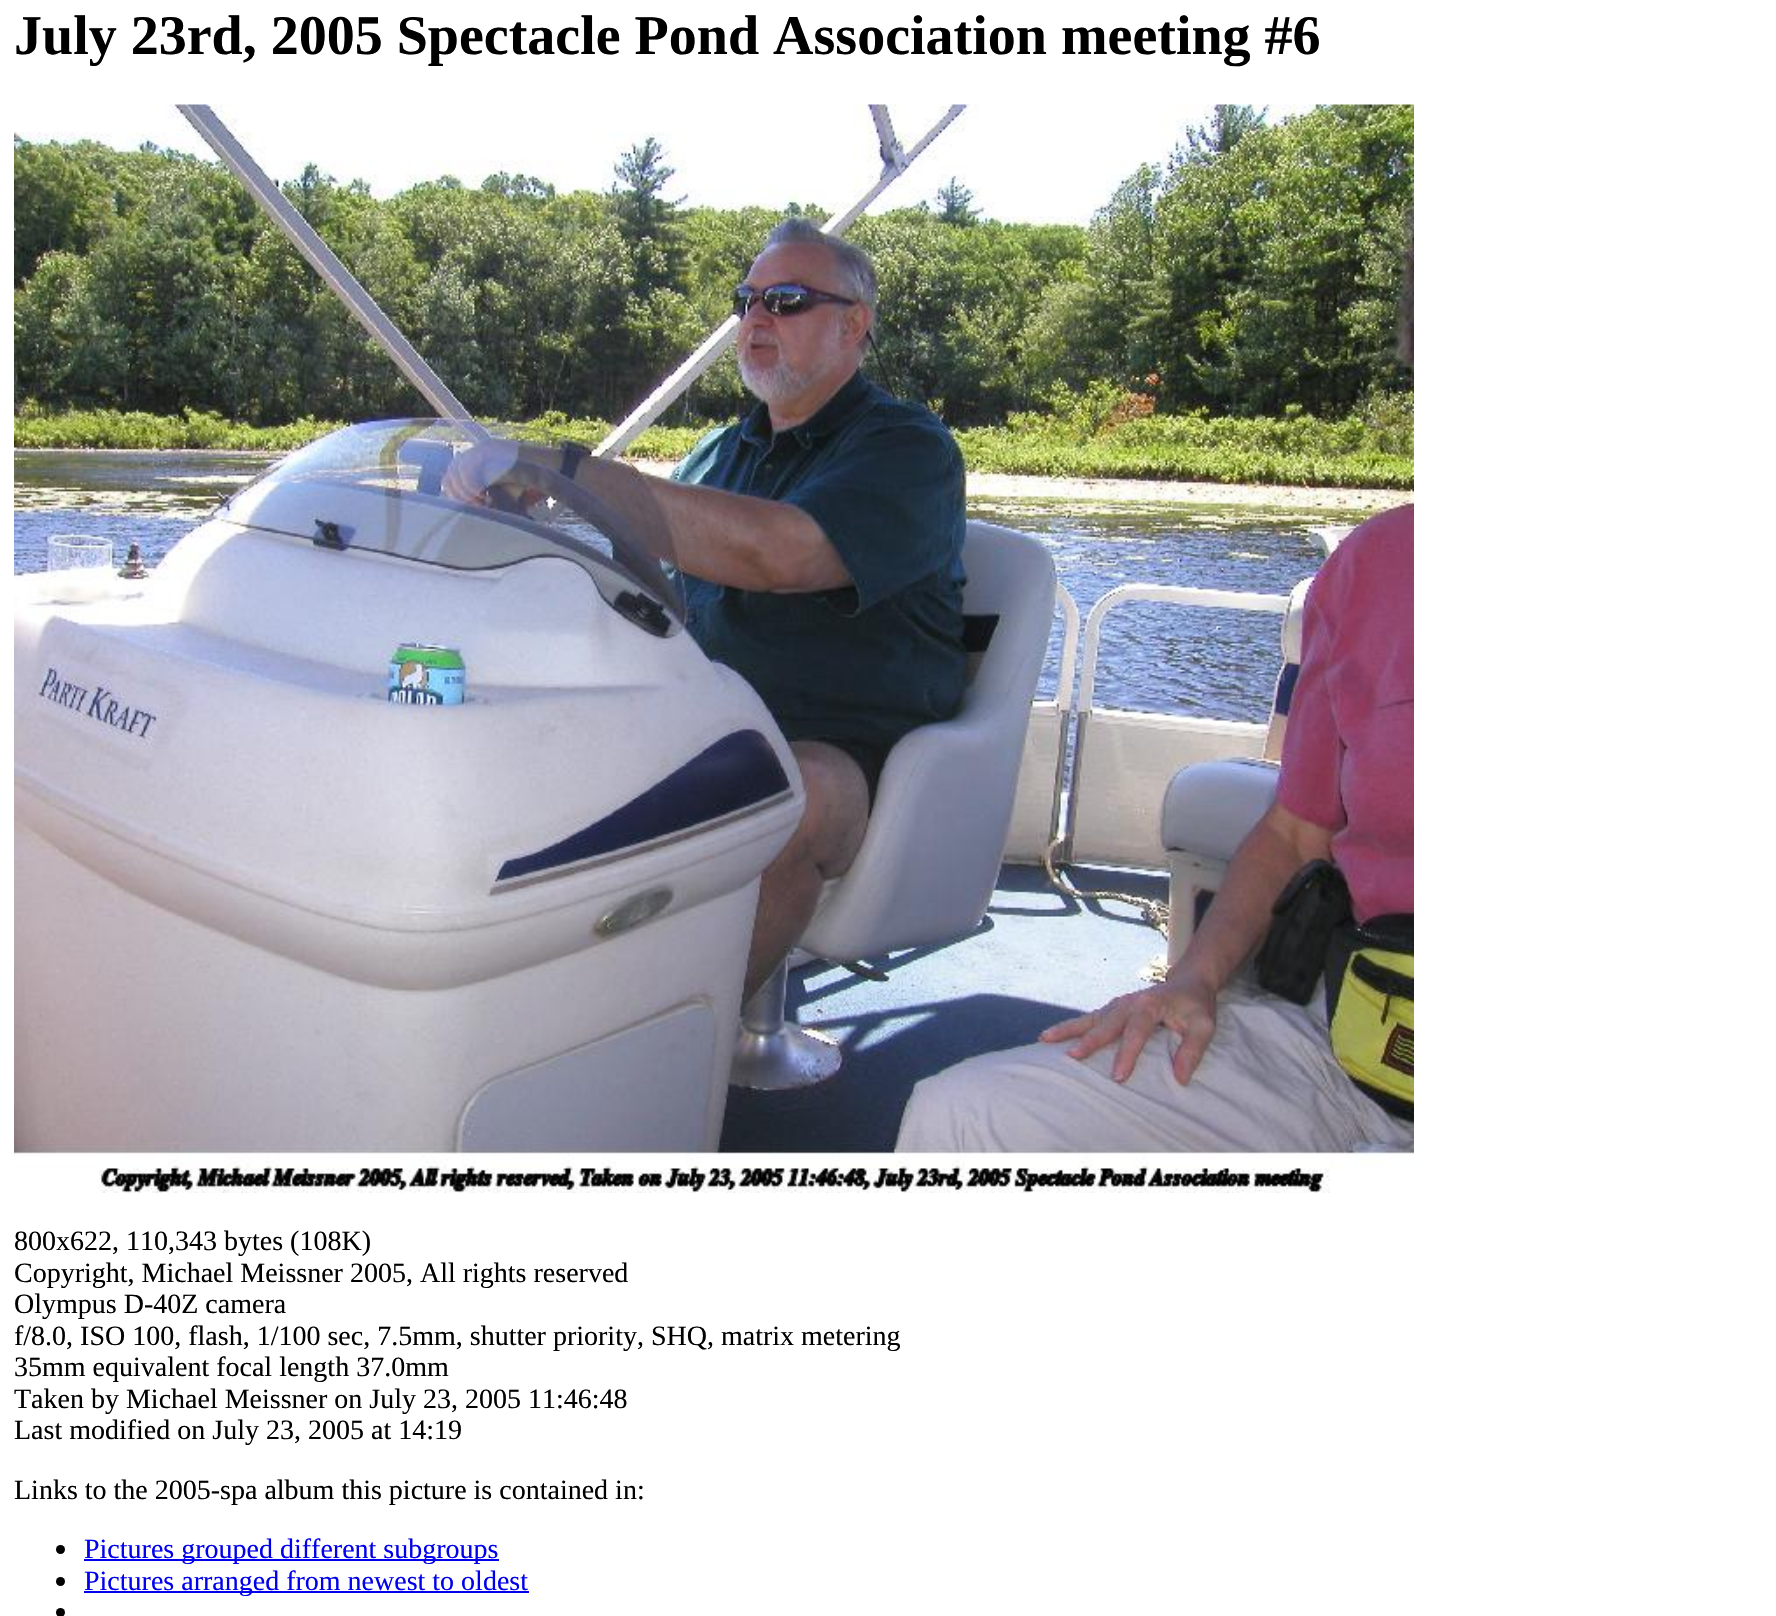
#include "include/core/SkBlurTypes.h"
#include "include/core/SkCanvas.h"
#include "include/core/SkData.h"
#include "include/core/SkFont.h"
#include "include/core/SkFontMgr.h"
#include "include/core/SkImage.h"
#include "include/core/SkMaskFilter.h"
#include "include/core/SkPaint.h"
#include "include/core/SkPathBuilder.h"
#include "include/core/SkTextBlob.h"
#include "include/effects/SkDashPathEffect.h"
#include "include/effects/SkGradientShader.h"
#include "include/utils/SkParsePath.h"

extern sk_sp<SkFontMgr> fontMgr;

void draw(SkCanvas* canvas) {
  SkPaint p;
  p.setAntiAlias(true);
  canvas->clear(SK_ColorWHITE);
  canvas->drawImageRect(SkImages::DeferredFromEncodedData(SkData::MakeFromFileName("images/1.png")), SkRect::MakeLTRB(14, 104, 1414, 1193), SkSamplingOptions());
  p.setColor(SK_ColorBLACK);
  canvas->drawCircle(60.5f, 1549.5f, 4.5f, p);
  p.setColor(SkColorSetRGB(0, 0, 238));
  canvas->drawRect(SkRect::MakeLTRB(84, 1559, 499, 1561), p);
  p.setColor(SK_ColorBLACK);
  canvas->drawCircle(60.5f, 1581.5f, 4.5f, p);
  p.setColor(SkColorSetRGB(0, 0, 238));
  canvas->drawRect(SkRect::MakeLTRB(84, 1591, 529, 1593), p);
  p.setColor(SK_ColorBLACK);
  canvas->drawCircle(60.5f, 1612.5f, 4.5f, p);
  SkFont font1(fontMgr->matchFamilyStyle("Liberation Serif", SkFontStyle::Bold()), 56);
  font1.setSubpixel(true);
  canvas->drawString("July 23rd, 2005 Spectacle Pond Association meeting #6", 14, 54, font1, p);
  SkFont font2(fontMgr->matchFamilyStyle("Liberation Serif", SkFontStyle::Normal()), 28);
  font2.setSubpixel(true);
  canvas->drawString("800x622, 110,343 bytes (108K)", 14, 1250, font2, p);
  canvas->drawString("Copyright, Michael Meissner 2005, All rights reserved", 14, 1282, font2, p);
  canvas->drawString("Olympus D-40Z camera", 14, 1313, font2, p);
  canvas->drawString("f/8.0, ISO 100, flash, 1/100 sec, 7.5mm, shutter priority, SHQ, matrix metering", 14, 1345, font2, p);
  canvas->drawString("35mm equivalent focal length 37.0mm", 14, 1376, font2, p);
  canvas->drawString("Taken by Michael Meissner on July 23, 2005 11:46:48", 14, 1408, font2, p);
  canvas->drawString("Last modified on July 23, 2005 at 14:19", 14, 1439, font2, p);
  canvas->drawString("Links to the 2005-spa album this picture is contained in:", 14, 1499, font2, p);
  p.setColor(SkColorSetRGB(0, 0, 238));
  canvas->drawString("Pictures grouped different subgroups", 84, 1558, font2, p);
  canvas->drawString("Pictures arranged from newest to oldest", 84, 1590, font2, p);
}
